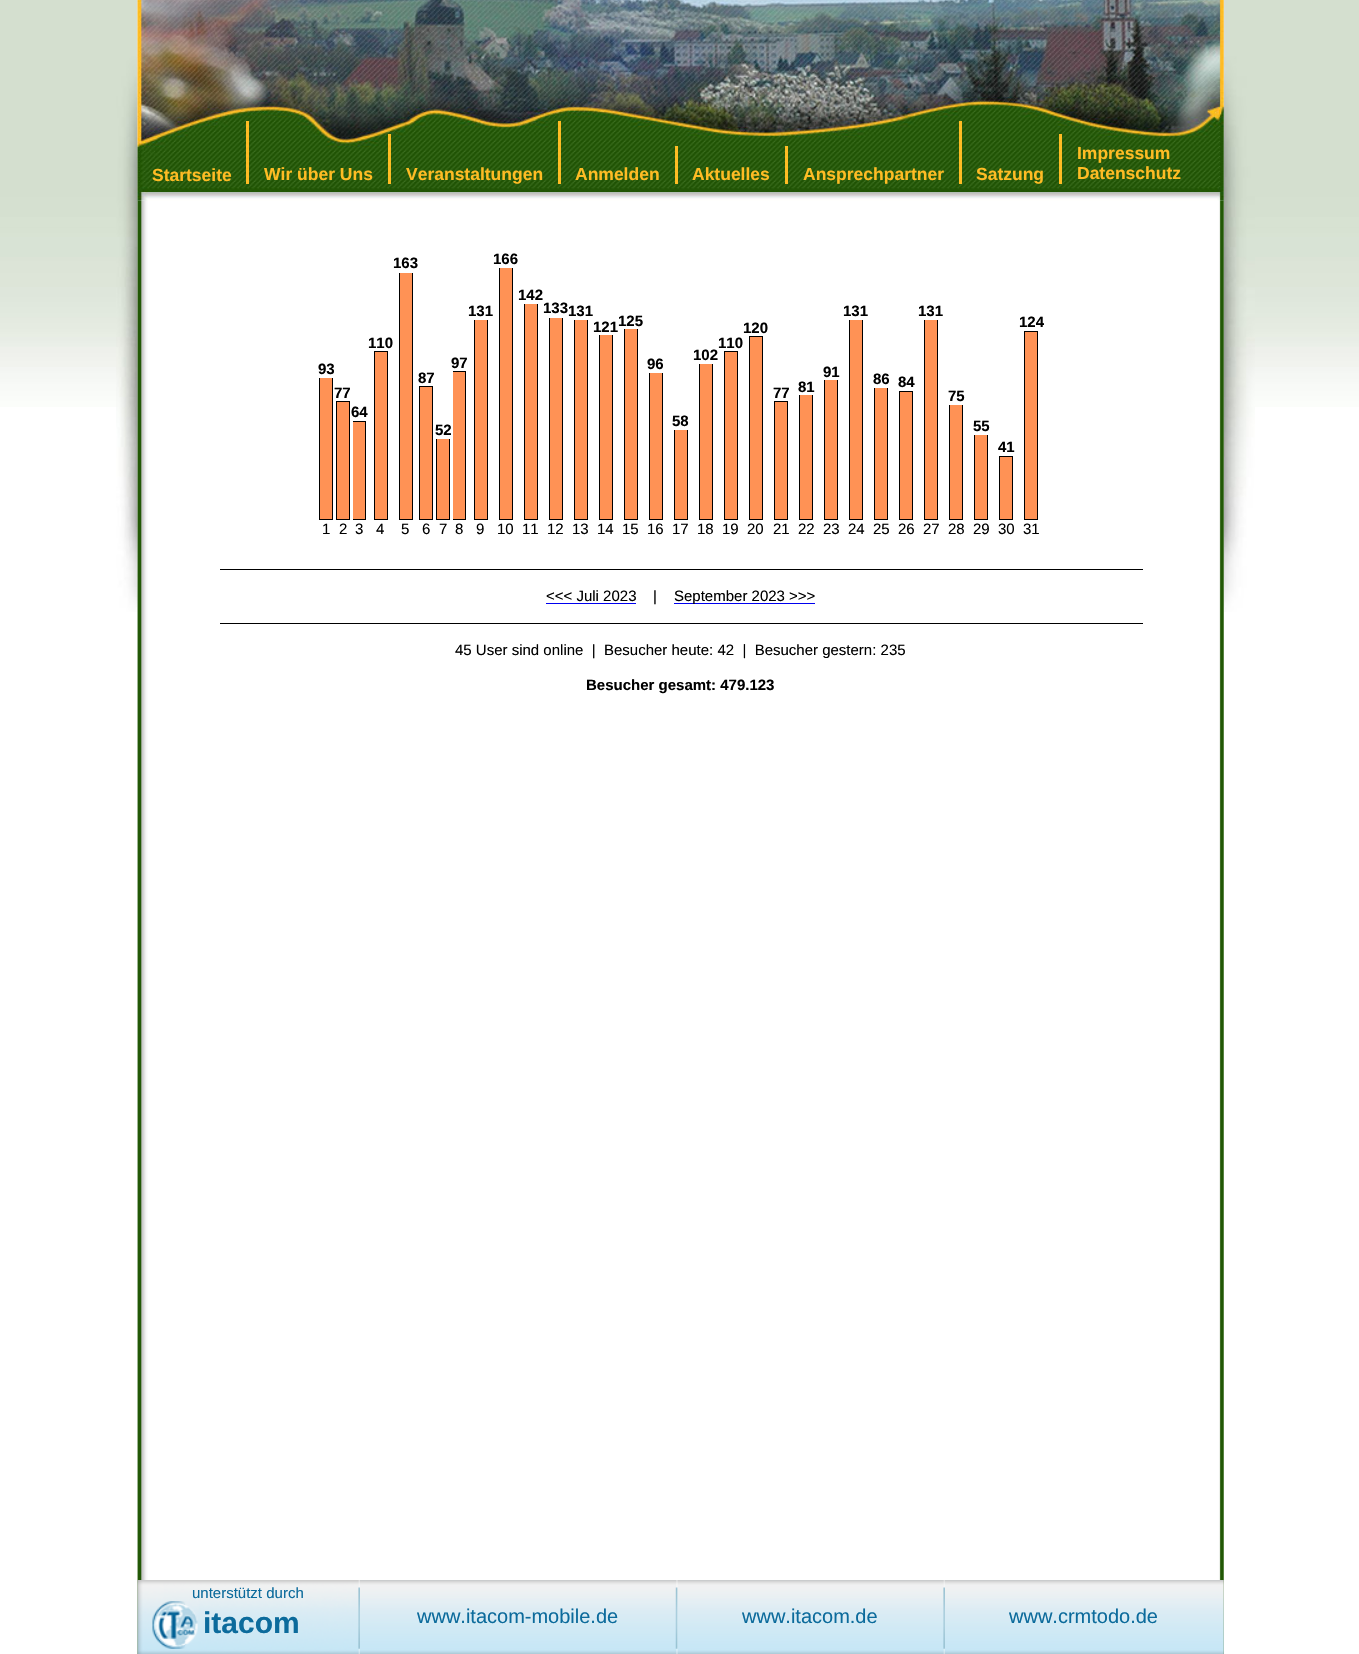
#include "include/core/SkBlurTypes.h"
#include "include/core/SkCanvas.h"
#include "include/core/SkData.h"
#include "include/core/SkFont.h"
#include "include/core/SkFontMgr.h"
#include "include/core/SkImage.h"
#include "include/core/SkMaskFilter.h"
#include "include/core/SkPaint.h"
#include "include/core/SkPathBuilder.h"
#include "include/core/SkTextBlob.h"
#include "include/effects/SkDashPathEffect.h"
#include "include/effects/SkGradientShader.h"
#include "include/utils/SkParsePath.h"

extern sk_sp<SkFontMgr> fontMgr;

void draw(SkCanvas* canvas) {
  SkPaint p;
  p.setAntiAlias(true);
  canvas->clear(SK_ColorWHITE);
  canvas->drawImageRect(SkImages::DeferredFromEncodedData(SkData::MakeFromFileName("images/1.png")), SkRect::MakeLTRB(0, 0, 1359, 407), SkSamplingOptions());
  canvas->drawImageRect(SkImages::DeferredFromEncodedData(SkData::MakeFromFileName("images/2.png")), SkRect::MakeLTRB(116, 0, 1255, 612), SkSamplingOptions());
  canvas->drawImageRect(SkImages::DeferredFromEncodedData(SkData::MakeFromFileName("images/3.png")), SkRect::MakeLTRB(137, 0, 1224, 192), SkSamplingOptions());
  p.setColor(SkColorSetRGB(255, 188, 36));
  canvas->drawRect(SkRect::MakeLTRB(246, 121, 249, 184), p);
  canvas->drawRect(SkRect::MakeLTRB(388, 134, 391, 184), p);
  canvas->drawRect(SkRect::MakeLTRB(558, 121, 561, 184), p);
  canvas->drawRect(SkRect::MakeLTRB(675, 146, 678, 184), p);
  canvas->drawRect(SkRect::MakeLTRB(785, 146, 788, 184), p);
  canvas->drawRect(SkRect::MakeLTRB(959, 121, 962, 184), p);
  canvas->drawRect(SkRect::MakeLTRB(1059, 134, 1062, 184), p);
  canvas->drawImageRect(SkImages::DeferredFromEncodedData(SkData::MakeFromFileName("images/5.png")), SkRect::MakeLTRB(137, 200, 1224, 1654), SkSamplingOptions());
  canvas->drawImageRect(SkImages::DeferredFromEncodedData(SkData::MakeFromFileName("images/4.png")), SkRect::MakeLTRB(137, 192, 1224, 201), SkSamplingOptions());
  p.setStyle(SkPaint::kStroke_Style);
  p.setStrokeWidth(1);
  p.setColor(SK_ColorBLACK);
  canvas->drawRect(SkRect::MakeLTRB(319.5f, 378.5f, 332.5f, 519.5f), p);
  p.setStyle(SkPaint::kFill_Style);
  p.setColor(SkColorSetRGB(255, 146, 85));
  canvas->drawRect(SkRect::MakeLTRB(320, 378, 332, 519), p);
  p.setStyle(SkPaint::kStroke_Style);
  p.setColor(SK_ColorBLACK);
  canvas->drawRect(SkRect::MakeLTRB(336.5f, 401.5f, 349.5f, 519.5f), p);
  p.setStyle(SkPaint::kFill_Style);
  p.setColor(SkColorSetRGB(255, 146, 85));
  canvas->drawRect(SkRect::MakeLTRB(337, 402, 349, 519), p);
  p.setStyle(SkPaint::kStroke_Style);
  p.setColor(SK_ColorBLACK);
  canvas->drawRect(SkRect::MakeLTRB(353.5f, 421.5f, 365.5f, 519.5f), p);
  p.setStyle(SkPaint::kFill_Style);
  p.setColor(SkColorSetRGB(255, 146, 85));
  canvas->drawRect(SkRect::MakeLTRB(353, 422, 365, 519), p);
  p.setStyle(SkPaint::kStroke_Style);
  p.setColor(SK_ColorBLACK);
  canvas->drawRect(SkRect::MakeLTRB(374.5f, 351.5f, 387.5f, 519.5f), p);
  p.setStyle(SkPaint::kFill_Style);
  p.setColor(SkColorSetRGB(255, 146, 85));
  canvas->drawRect(SkRect::MakeLTRB(375, 352, 387, 519), p);
  p.setStyle(SkPaint::kStroke_Style);
  p.setColor(SK_ColorBLACK);
  canvas->drawRect(SkRect::MakeLTRB(399.5f, 273.5f, 412.5f, 519.5f), p);
  p.setStyle(SkPaint::kFill_Style);
  p.setColor(SkColorSetRGB(255, 146, 85));
  canvas->drawRect(SkRect::MakeLTRB(400, 273, 412, 519), p);
  p.setStyle(SkPaint::kStroke_Style);
  p.setColor(SK_ColorBLACK);
  canvas->drawRect(SkRect::MakeLTRB(419.5f, 386.5f, 432.5f, 519.5f), p);
  p.setStyle(SkPaint::kFill_Style);
  p.setColor(SkColorSetRGB(255, 146, 85));
  canvas->drawRect(SkRect::MakeLTRB(420, 387, 432, 519), p);
  p.setStyle(SkPaint::kStroke_Style);
  p.setColor(SK_ColorBLACK);
  canvas->drawRect(SkRect::MakeLTRB(436.5f, 439.5f, 449.5f, 519.5f), p);
  p.setStyle(SkPaint::kFill_Style);
  p.setColor(SkColorSetRGB(255, 146, 85));
  canvas->drawRect(SkRect::MakeLTRB(437, 439, 449, 519), p);
  p.setStyle(SkPaint::kStroke_Style);
  p.setColor(SK_ColorBLACK);
  canvas->drawRect(SkRect::MakeLTRB(453.5f, 371.5f, 465.5f, 519.5f), p);
  p.setStyle(SkPaint::kFill_Style);
  p.setColor(SkColorSetRGB(255, 146, 85));
  canvas->drawRect(SkRect::MakeLTRB(453, 372, 465, 519), p);
  p.setStyle(SkPaint::kStroke_Style);
  p.setColor(SK_ColorBLACK);
  canvas->drawRect(SkRect::MakeLTRB(474.5f, 320.5f, 487.5f, 519.5f), p);
  p.setStyle(SkPaint::kFill_Style);
  p.setColor(SkColorSetRGB(255, 146, 85));
  canvas->drawRect(SkRect::MakeLTRB(475, 320, 487, 519), p);
  p.setStyle(SkPaint::kStroke_Style);
  p.setColor(SK_ColorBLACK);
  canvas->drawRect(SkRect::MakeLTRB(499.5f, 268.5f, 512.5f, 519.5f), p);
  p.setStyle(SkPaint::kFill_Style);
  p.setColor(SkColorSetRGB(255, 146, 85));
  canvas->drawRect(SkRect::MakeLTRB(500, 268, 512, 519), p);
  p.setStyle(SkPaint::kStroke_Style);
  p.setColor(SK_ColorBLACK);
  canvas->drawRect(SkRect::MakeLTRB(524.5f, 304.5f, 537.5f, 519.5f), p);
  p.setStyle(SkPaint::kFill_Style);
  p.setColor(SkColorSetRGB(255, 146, 85));
  canvas->drawRect(SkRect::MakeLTRB(525, 304, 537, 519), p);
  p.setStyle(SkPaint::kStroke_Style);
  p.setColor(SK_ColorBLACK);
  canvas->drawRect(SkRect::MakeLTRB(549.5f, 318.5f, 562.5f, 519.5f), p);
  p.setStyle(SkPaint::kFill_Style);
  p.setColor(SkColorSetRGB(255, 146, 85));
  canvas->drawRect(SkRect::MakeLTRB(550, 318, 562, 519), p);
  p.setStyle(SkPaint::kStroke_Style);
  p.setColor(SK_ColorBLACK);
  canvas->drawRect(SkRect::MakeLTRB(574.5f, 320.5f, 587.5f, 519.5f), p);
  p.setStyle(SkPaint::kFill_Style);
  p.setColor(SkColorSetRGB(255, 146, 85));
  canvas->drawRect(SkRect::MakeLTRB(575, 320, 587, 519), p);
  p.setStyle(SkPaint::kStroke_Style);
  p.setColor(SK_ColorBLACK);
  canvas->drawRect(SkRect::MakeLTRB(599.5f, 335.5f, 612.5f, 519.5f), p);
  p.setStyle(SkPaint::kFill_Style);
  p.setColor(SkColorSetRGB(255, 146, 85));
  canvas->drawRect(SkRect::MakeLTRB(600, 335, 612, 519), p);
  p.setStyle(SkPaint::kStroke_Style);
  p.setColor(SK_ColorBLACK);
  canvas->drawRect(SkRect::MakeLTRB(624.5f, 329.5f, 637.5f, 519.5f), p);
  p.setStyle(SkPaint::kFill_Style);
  p.setColor(SkColorSetRGB(255, 146, 85));
  canvas->drawRect(SkRect::MakeLTRB(625, 329, 637, 519), p);
  p.setStyle(SkPaint::kStroke_Style);
  p.setColor(SK_ColorBLACK);
  canvas->drawRect(SkRect::MakeLTRB(649.5f, 373.5f, 662.5f, 519.5f), p);
  p.setStyle(SkPaint::kFill_Style);
  p.setColor(SkColorSetRGB(255, 146, 85));
  canvas->drawRect(SkRect::MakeLTRB(650, 373, 662, 519), p);
  p.setStyle(SkPaint::kStroke_Style);
  p.setColor(SK_ColorBLACK);
  canvas->drawRect(SkRect::MakeLTRB(674.5f, 430.5f, 687.5f, 519.5f), p);
  p.setStyle(SkPaint::kFill_Style);
  p.setColor(SkColorSetRGB(255, 146, 85));
  canvas->drawRect(SkRect::MakeLTRB(675, 430, 687, 519), p);
  p.setStyle(SkPaint::kStroke_Style);
  p.setColor(SK_ColorBLACK);
  canvas->drawRect(SkRect::MakeLTRB(699.5f, 364.5f, 712.5f, 519.5f), p);
  p.setStyle(SkPaint::kFill_Style);
  p.setColor(SkColorSetRGB(255, 146, 85));
  canvas->drawRect(SkRect::MakeLTRB(700, 364, 712, 519), p);
  p.setStyle(SkPaint::kStroke_Style);
  p.setColor(SK_ColorBLACK);
  canvas->drawRect(SkRect::MakeLTRB(724.5f, 351.5f, 737.5f, 519.5f), p);
  p.setStyle(SkPaint::kFill_Style);
  p.setColor(SkColorSetRGB(255, 146, 85));
  canvas->drawRect(SkRect::MakeLTRB(725, 352, 737, 519), p);
  p.setStyle(SkPaint::kStroke_Style);
  p.setColor(SK_ColorBLACK);
  canvas->drawRect(SkRect::MakeLTRB(749.5f, 336.5f, 762.5f, 519.5f), p);
  p.setStyle(SkPaint::kFill_Style);
  p.setColor(SkColorSetRGB(255, 146, 85));
  canvas->drawRect(SkRect::MakeLTRB(750, 337, 762, 519), p);
  p.setStyle(SkPaint::kStroke_Style);
  p.setColor(SK_ColorBLACK);
  canvas->drawRect(SkRect::MakeLTRB(774.5f, 401.5f, 787.5f, 519.5f), p);
  p.setStyle(SkPaint::kFill_Style);
  p.setColor(SkColorSetRGB(255, 146, 85));
  canvas->drawRect(SkRect::MakeLTRB(775, 402, 787, 519), p);
  p.setStyle(SkPaint::kStroke_Style);
  p.setColor(SK_ColorBLACK);
  canvas->drawRect(SkRect::MakeLTRB(799.5f, 395.5f, 812.5f, 519.5f), p);
  p.setStyle(SkPaint::kFill_Style);
  p.setColor(SkColorSetRGB(255, 146, 85));
  canvas->drawRect(SkRect::MakeLTRB(800, 395, 812, 519), p);
  p.setStyle(SkPaint::kStroke_Style);
  p.setColor(SK_ColorBLACK);
  canvas->drawRect(SkRect::MakeLTRB(824.5f, 380.5f, 837.5f, 519.5f), p);
  p.setStyle(SkPaint::kFill_Style);
  p.setColor(SkColorSetRGB(255, 146, 85));
  canvas->drawRect(SkRect::MakeLTRB(825, 380, 837, 519), p);
  p.setStyle(SkPaint::kStroke_Style);
  p.setColor(SK_ColorBLACK);
  canvas->drawRect(SkRect::MakeLTRB(849.5f, 320.5f, 862.5f, 519.5f), p);
  p.setStyle(SkPaint::kFill_Style);
  p.setColor(SkColorSetRGB(255, 146, 85));
  canvas->drawRect(SkRect::MakeLTRB(850, 320, 862, 519), p);
  p.setStyle(SkPaint::kStroke_Style);
  p.setColor(SK_ColorBLACK);
  canvas->drawRect(SkRect::MakeLTRB(874.5f, 388.5f, 887.5f, 519.5f), p);
  p.setStyle(SkPaint::kFill_Style);
  p.setColor(SkColorSetRGB(255, 146, 85));
  canvas->drawRect(SkRect::MakeLTRB(875, 388, 887, 519), p);
  p.setStyle(SkPaint::kStroke_Style);
  p.setColor(SK_ColorBLACK);
  canvas->drawRect(SkRect::MakeLTRB(899.5f, 391.5f, 912.5f, 519.5f), p);
  p.setStyle(SkPaint::kFill_Style);
  p.setColor(SkColorSetRGB(255, 146, 85));
  canvas->drawRect(SkRect::MakeLTRB(900, 392, 912, 519), p);
  p.setStyle(SkPaint::kStroke_Style);
  p.setColor(SK_ColorBLACK);
  canvas->drawRect(SkRect::MakeLTRB(924.5f, 320.5f, 937.5f, 519.5f), p);
  p.setStyle(SkPaint::kFill_Style);
  p.setColor(SkColorSetRGB(255, 146, 85));
  canvas->drawRect(SkRect::MakeLTRB(925, 320, 937, 519), p);
  p.setStyle(SkPaint::kStroke_Style);
  p.setColor(SK_ColorBLACK);
  canvas->drawRect(SkRect::MakeLTRB(949.5f, 405.5f, 962.5f, 519.5f), p);
  p.setStyle(SkPaint::kFill_Style);
  p.setColor(SkColorSetRGB(255, 146, 85));
  canvas->drawRect(SkRect::MakeLTRB(950, 405, 962, 519), p);
  p.setStyle(SkPaint::kStroke_Style);
  p.setColor(SK_ColorBLACK);
  canvas->drawRect(SkRect::MakeLTRB(974.5f, 435.5f, 987.5f, 519.5f), p);
  p.setStyle(SkPaint::kFill_Style);
  p.setColor(SkColorSetRGB(255, 146, 85));
  canvas->drawRect(SkRect::MakeLTRB(975, 435, 987, 519), p);
  p.setStyle(SkPaint::kStroke_Style);
  p.setColor(SK_ColorBLACK);
  canvas->drawRect(SkRect::MakeLTRB(999.5f, 456.5f, 1012.5f, 519.5f), p);
  p.setStyle(SkPaint::kFill_Style);
  p.setColor(SkColorSetRGB(255, 146, 85));
  canvas->drawRect(SkRect::MakeLTRB(1000, 457, 1012, 519), p);
  p.setStyle(SkPaint::kStroke_Style);
  p.setColor(SK_ColorBLACK);
  canvas->drawRect(SkRect::MakeLTRB(1024.5f, 331.5f, 1037.5f, 519.5f), p);
  p.setStyle(SkPaint::kFill_Style);
  p.setColor(SkColorSetRGB(255, 146, 85));
  canvas->drawRect(SkRect::MakeLTRB(1025, 332, 1037, 519), p);
  p.setColor(SK_ColorBLACK);
  canvas->drawRect(SkRect::MakeLTRB(220, 569, 1143, 570), p);
  p.setColor(SkColorSetRGB(0, 0, 238));
  canvas->drawRect(SkRect::MakeLTRB(546, 603, 636, 604), p);
  canvas->drawRect(SkRect::MakeLTRB(674, 603, 815, 604), p);
  p.setColor(SK_ColorBLACK);
  canvas->drawRect(SkRect::MakeLTRB(220, 623, 1143, 624), p);
  canvas->drawImageRect(SkImages::DeferredFromEncodedData(SkData::MakeFromFileName("images/6.png")), SkRect::MakeLTRB(137, 1580, 359, 1654), SkSamplingOptions());
  canvas->drawImageRect(SkImages::DeferredFromEncodedData(SkData::MakeFromFileName("images/7.png")), SkRect::MakeLTRB(358, 1580, 360, 1654), SkSamplingOptions());
  canvas->drawImageRect(SkImages::DeferredFromEncodedData(SkData::MakeFromFileName("images/8.png")), SkRect::MakeLTRB(360, 1580, 677, 1654), SkSamplingOptions());
  canvas->drawImageRect(SkImages::DeferredFromEncodedData(SkData::MakeFromFileName("images/9.png")), SkRect::MakeLTRB(675, 1580, 678, 1654), SkSamplingOptions());
  canvas->drawImageRect(SkImages::DeferredFromEncodedData(SkData::MakeFromFileName("images/10.png")), SkRect::MakeLTRB(677, 1580, 944, 1654), SkSamplingOptions());
  canvas->drawImageRect(SkImages::DeferredFromEncodedData(SkData::MakeFromFileName("images/11.png")), SkRect::MakeLTRB(943, 1580, 945, 1654), SkSamplingOptions());
  canvas->drawImageRect(SkImages::DeferredFromEncodedData(SkData::MakeFromFileName("images/12.png")), SkRect::MakeLTRB(945, 1580, 1224, 1654), SkSamplingOptions());
  SkFont font1(fontMgr->matchFamilyStyle("Liberation Sans", SkFontStyle::Bold()), 17.5f);
  font1.setSubpixel(true);
  p.setColor(SkColorSetRGB(255, 188, 36));
  canvas->drawString("Startseite", 152, 181, font1, p);
  canvas->drawString("Wir über Uns", 264, 180, font1, p);
  canvas->drawString("Veranstaltungen", 406, 180, font1, p);
  canvas->drawString("Anmelden", 575, 180, font1, p);
  canvas->drawString("Aktuelles", 692, 180, font1, p);
  canvas->drawString("Ansprechpartner", 803, 180, font1, p);
  canvas->drawString("Satzung", 976, 180, font1, p);
  canvas->drawString("Impressum", 1077, 159, font1, p);
  canvas->drawString("Datenschutz", 1077, 179, font1, p);
  SkFont font2(fontMgr->matchFamilyStyle("Liberation Sans", SkFontStyle::Bold()), 15);
  font2.setSubpixel(true);
  p.setColor(SK_ColorBLACK);
  canvas->drawString("93", 318, 374, font2, p);
  SkFont font3(fontMgr->matchFamilyStyle("Liberation Sans", SkFontStyle::Normal()), 15);
  font3.setSubpixel(true);
  canvas->drawString("1", 322, 534, font3, p);
  canvas->drawString("77", 334, 398, font2, p);
  canvas->drawString("2", 339, 534, font3, p);
  canvas->drawString("64", 351, 417, font2, p);
  canvas->drawString("3", 355, 534, font3, p);
  canvas->drawString("110", 368, 348, font2, p);
  canvas->drawString("4", 376, 534, font3, p);
  canvas->drawString("163", 393, 268, font2, p);
  canvas->drawString("5", 401, 534, font3, p);
  canvas->drawString("87", 418, 383, font2, p);
  canvas->drawString("6", 422, 534, font3, p);
  canvas->drawString("52", 435, 435, font2, p);
  canvas->drawString("7", 439, 534, font3, p);
  canvas->drawString("97", 451, 368, font2, p);
  canvas->drawString("8", 455, 534, font3, p);
  canvas->drawString("131", 468, 316, font2, p);
  canvas->drawString("9", 476, 534, font3, p);
  canvas->drawString("166", 493, 264, font2, p);
  canvas->drawString("10", 497, 534, font3, p);
  canvas->drawString("142", 518, 300, font2, p);
  canvas->drawString("11", 522, 534, font3, p);
  canvas->drawString("133", 543, 313, font2, p);
  canvas->drawString("12", 547, 534, font3, p);
  canvas->drawString("131", 568, 316, font2, p);
  canvas->drawString("13", 572, 534, font3, p);
  canvas->drawString("121", 593, 332, font2, p);
  canvas->drawString("14", 597, 534, font3, p);
  canvas->drawString("125", 618, 326, font2, p);
  canvas->drawString("15", 622, 534, font3, p);
  canvas->drawString("96", 647, 369, font2, p);
  canvas->drawString("16", 647, 534, font3, p);
  canvas->drawString("58", 672, 426, font2, p);
  canvas->drawString("17", 672, 534, font3, p);
  canvas->drawString("102", 693, 360, font2, p);
  canvas->drawString("18", 697, 534, font3, p);
  canvas->drawString("110", 718, 348, font2, p);
  canvas->drawString("19", 722, 534, font3, p);
  canvas->drawString("120", 743, 333, font2, p);
  canvas->drawString("20", 747, 534, font3, p);
  canvas->drawString("77", 773, 398, font2, p);
  canvas->drawString("21", 773, 534, font3, p);
  canvas->drawString("81", 798, 392, font2, p);
  canvas->drawString("22", 798, 534, font3, p);
  canvas->drawString("91", 823, 377, font2, p);
  canvas->drawString("23", 823, 534, font3, p);
  canvas->drawString("131", 843, 316, font2, p);
  canvas->drawString("24", 848, 534, font3, p);
  canvas->drawString("86", 873, 384, font2, p);
  canvas->drawString("25", 873, 534, font3, p);
  canvas->drawString("84", 898, 387, font2, p);
  canvas->drawString("26", 898, 534, font3, p);
  canvas->drawString("131", 918, 316, font2, p);
  canvas->drawString("27", 923, 534, font3, p);
  canvas->drawString("75", 948, 401, font2, p);
  canvas->drawString("28", 948, 534, font3, p);
  canvas->drawString("55", 973, 431, font2, p);
  canvas->drawString("29", 973, 534, font3, p);
  canvas->drawString("41", 998, 452, font2, p);
  canvas->drawString("30", 998, 534, font3, p);
  canvas->drawString("124", 1019, 327, font2, p);
  canvas->drawString("31", 1023, 534, font3, p);
  canvas->drawString("<<< Juli 2023", 546, 601, font3, p);
  canvas->drawString("|", 653, 601, font3, p);
  canvas->drawString("September 2023 >>>", 674, 601, font3, p);
  canvas->drawString("45 User sind online  |  Besucher heute: 42  |  Besucher gestern: 235", 455, 655, font3, p);
  canvas->drawString("Besucher gesamt: 479.123", 586, 690, font2, p);
  p.setColor(SkColorSetRGB(12, 107, 156));
  canvas->drawString("unterstützt durch", 192, 1598, font3, p);
  SkFont font4(fontMgr->matchFamilyStyle("Liberation Sans", SkFontStyle::Bold()), 30);
  font4.setSubpixel(true);
  canvas->drawString("itacom", 203, 1633, font4, p);
  SkFont font5(fontMgr->matchFamilyStyle("Liberation Sans", SkFontStyle::Normal()), 20);
  font5.setSubpixel(true);
  canvas->drawString("www.itacom-mobile.de", 417, 1623, font5, p);
  canvas->drawString("www.itacom.de", 742, 1623, font5, p);
  canvas->drawString("www.crmtodo.de", 1009, 1623, font5, p);
}
